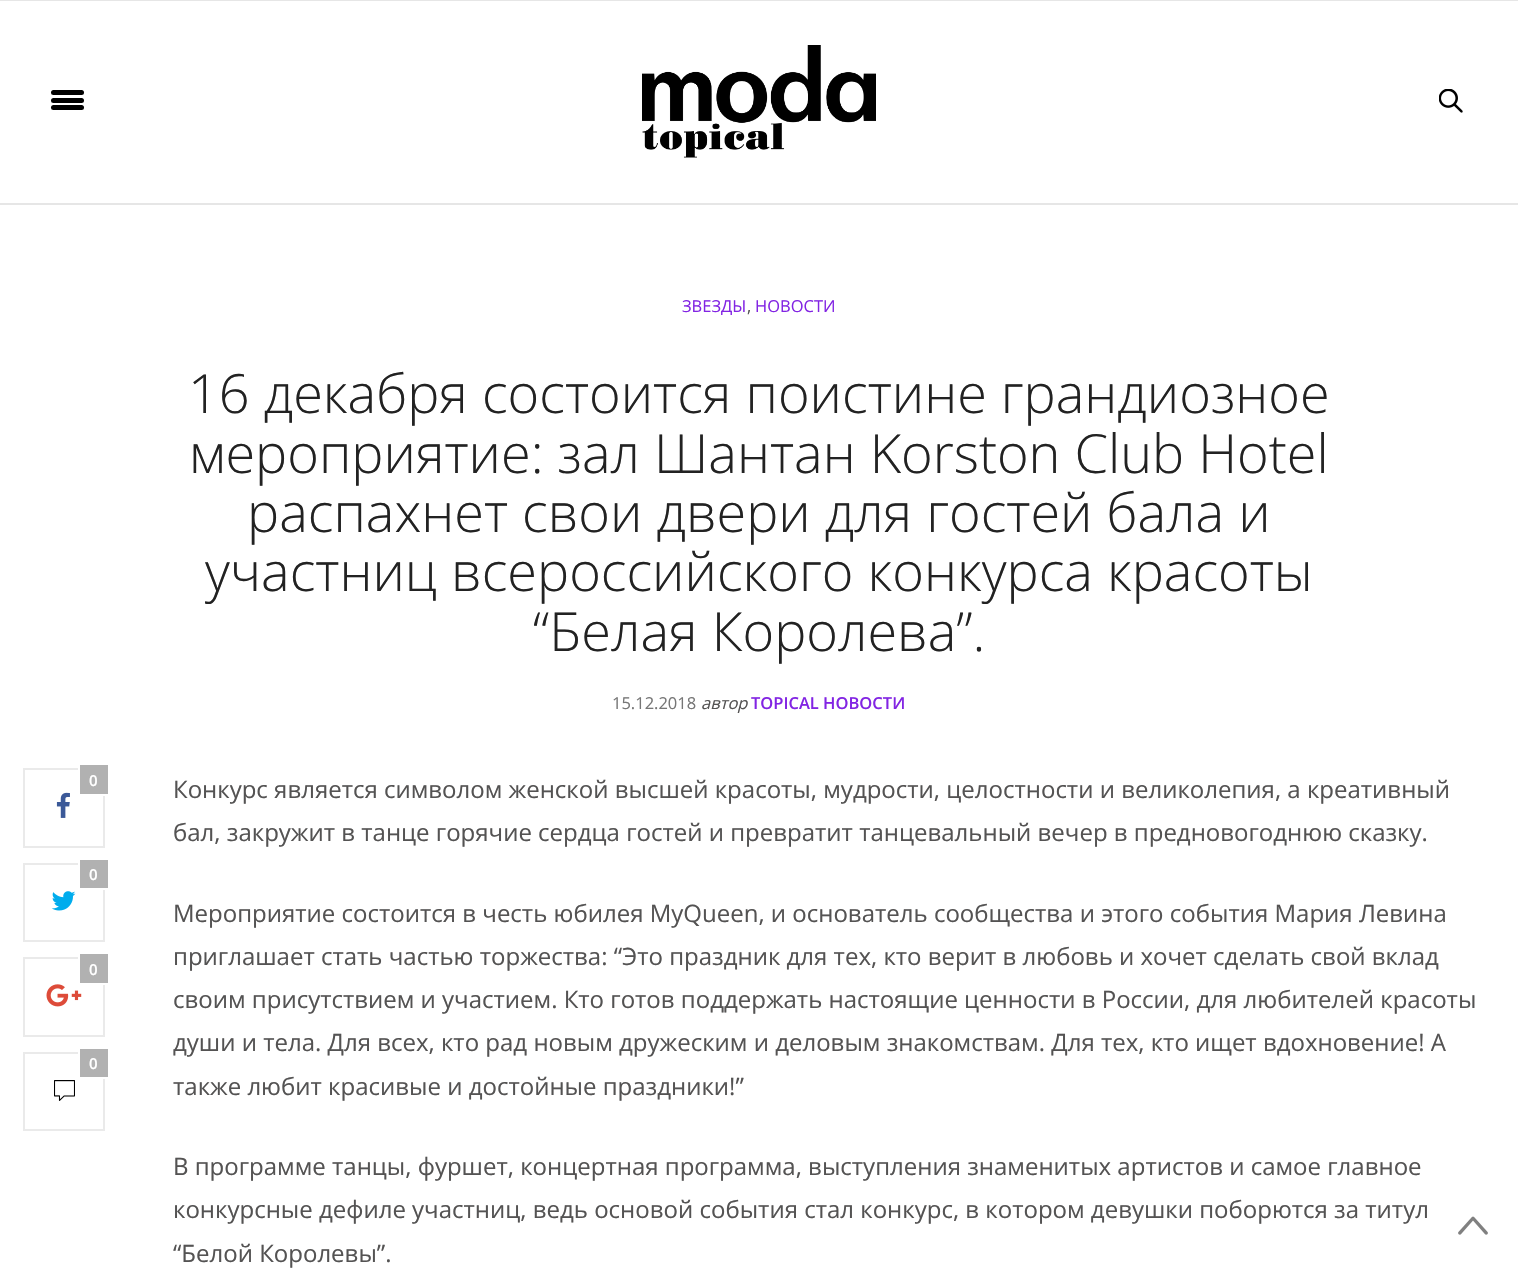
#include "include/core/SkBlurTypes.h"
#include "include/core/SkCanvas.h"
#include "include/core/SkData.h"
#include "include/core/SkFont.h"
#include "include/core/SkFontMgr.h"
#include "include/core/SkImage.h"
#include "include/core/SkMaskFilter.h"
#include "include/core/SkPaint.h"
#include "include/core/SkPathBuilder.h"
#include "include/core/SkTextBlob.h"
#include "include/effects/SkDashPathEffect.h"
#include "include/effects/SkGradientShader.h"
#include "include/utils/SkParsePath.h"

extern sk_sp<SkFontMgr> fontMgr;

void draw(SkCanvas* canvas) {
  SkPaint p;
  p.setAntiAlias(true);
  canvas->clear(SK_ColorWHITE);
  p.setColor(SkColorSetRGB(230, 230, 230));
  canvas->drawRect(SkRect::MakeLTRB(0, 0, 1518, 1), p);
  canvas->drawRect(SkRect::MakeLTRB(0, 203, 1518, 205), p);
  p.setColor(SK_ColorBLACK);
  canvas->drawRoundRect(SkRect::MakeLTRB(51, 90, 84, 95), 2.5f, 2.5f, p);
  canvas->drawRoundRect(SkRect::MakeLTRB(51, 98, 84, 103), 2.5f, 2.5f, p);
  canvas->drawRoundRect(SkRect::MakeLTRB(51, 105, 84, 110), 2.5f, 2.5f, p);
  canvas->drawImageRect(SkImages::DeferredFromEncodedData(SkData::MakeFromFileName("images/1.png")), SkRect::MakeLTRB(642, 45, 876, 158), SkSamplingOptions());
  canvas->drawImageRect(SkImages::DeferredFromEncodedData(SkData::MakeFromFileName("images/2.png")), SkRect::MakeLTRB(1439, 89, 1463, 113), SkSamplingOptions());
  p.setStyle(SkPaint::kStroke_Style);
  p.setStrokeWidth(2);
  p.setColor(SkColorSetRGB(234, 234, 234));
  canvas->drawRect(SkRect::MakeLTRB(24, 769, 104, 847), p);
  p.setStyle(SkPaint::kFill_Style);
  p.setColor(SkColorSetRGB(177, 177, 177));
  canvas->drawRect(SkRect::MakeLTRB(80, 765, 108, 794), p);
  p.setColor(SK_ColorWHITE);
  canvas->drawRect(SkRect::MakeLTRB(103, 794, 108, 796), p);
  canvas->drawRect(SkRect::MakeLTRB(78, 765, 80, 770), p);
  canvas->drawImageRect(SkImages::DeferredFromEncodedData(SkData::MakeFromFileName("images/3.png")), SkRect::MakeLTRB(56, 792, 70, 818), SkSamplingOptions());
  p.setStyle(SkPaint::kStroke_Style);
  p.setColor(SkColorSetRGB(234, 234, 234));
  canvas->drawRect(SkRect::MakeLTRB(24, 864, 104, 941), p);
  p.setStyle(SkPaint::kFill_Style);
  p.setColor(SkColorSetRGB(177, 177, 177));
  canvas->drawRect(SkRect::MakeLTRB(80, 860, 108, 888), p);
  p.setColor(SK_ColorWHITE);
  canvas->drawRect(SkRect::MakeLTRB(103, 888, 108, 890), p);
  canvas->drawRect(SkRect::MakeLTRB(78, 860, 80, 865), p);
  canvas->drawImageRect(SkImages::DeferredFromEncodedData(SkData::MakeFromFileName("images/4.png")), SkRect::MakeLTRB(51, 891, 76, 911), SkSamplingOptions());
  p.setStyle(SkPaint::kStroke_Style);
  p.setColor(SkColorSetRGB(234, 234, 234));
  canvas->drawRect(SkRect::MakeLTRB(24, 958, 104, 1036), p);
  p.setStyle(SkPaint::kFill_Style);
  p.setColor(SkColorSetRGB(177, 177, 177));
  canvas->drawRect(SkRect::MakeLTRB(80, 954, 108, 983), p);
  p.setColor(SK_ColorWHITE);
  canvas->drawRect(SkRect::MakeLTRB(103, 983, 108, 985), p);
  canvas->drawRect(SkRect::MakeLTRB(78, 954, 80, 959), p);
  canvas->drawImageRect(SkImages::DeferredFromEncodedData(SkData::MakeFromFileName("images/5.png")), SkRect::MakeLTRB(46, 984, 82, 1007), SkSamplingOptions());
  p.setStyle(SkPaint::kStroke_Style);
  p.setColor(SkColorSetRGB(234, 234, 234));
  canvas->drawRect(SkRect::MakeLTRB(24, 1053, 104, 1130), p);
  p.setStyle(SkPaint::kFill_Style);
  p.setColor(SkColorSetRGB(177, 177, 177));
  canvas->drawRect(SkRect::MakeLTRB(80, 1049, 108, 1077), p);
  p.setColor(SK_ColorWHITE);
  canvas->drawRect(SkRect::MakeLTRB(103, 1077, 108, 1079), p);
  canvas->drawRect(SkRect::MakeLTRB(78, 1049, 80, 1054), p);
  canvas->drawImageRect(SkImages::DeferredFromEncodedData(SkData::MakeFromFileName("images/6.png")), SkRect::MakeLTRB(54, 1080, 75, 1101), SkSamplingOptions());
  canvas->drawImageRect(SkImages::DeferredFromEncodedData(SkData::MakeFromFileName("images/7.png")), SkRect::MakeLTRB(1458, 1216, 1488, 1235), SkSamplingOptions());
  SkFont font1(fontMgr->matchFamilyStyle("Open Sans", SkFontStyle::Normal()), 16.5f);
  font1.setSubpixel(true);
  p.setColor(SkColorSetRGB(130, 36, 227));
  canvas->drawString("ЗВЕЗДЫ", 682, 312, font1, p);
  p.setColor(SkColorSetRGB(84, 83, 83));
  canvas->drawString(",", 747, 312, font1, p);
  p.setColor(SkColorSetRGB(130, 36, 227));
  canvas->drawString("НОВОСТИ", 755, 312, font1, p);
  SkFont font2(fontMgr->matchFamilyStyle("Open Sans", SkFontStyle(300, SkFontStyle::kNormal_Width, SkFontStyle::kUpright_Slant)), 54);
  font2.setSubpixel(true);
  p.setColor(SkColorSetRGB(34, 34, 34));
  canvas->drawString("16 декабря состоится поистине грандиозное", 188, 413, font2, p);
  canvas->drawString("мероприятие: зал Шантан Korston Club Hotel", 189, 473, font2, p);
  canvas->drawString("распахнет свои двери для гостей бала и", 247, 532, font2, p);
  canvas->drawString("участниц всероссийского конкурса красоты", 205, 591, font2, p);
  canvas->drawString("“Белая Королева”.", 533, 651, font2, p);
  p.setColor(SkColorSetRGB(118, 118, 118));
  canvas->drawString("15.12.2018", 612, 709, font1, p);
  SkFont font3(fontMgr->matchFamilyStyle("Open Sans", SkFontStyle::Italic()), 16.5f);
  font3.setSubpixel(true);
  p.setColor(SkColorSetRGB(84, 83, 83));
  canvas->drawString("автор", 701, 709, font3, p);
  SkFont font4(fontMgr->matchFamilyStyle("Open Sans", SkFontStyle(600, SkFontStyle::kNormal_Width, SkFontStyle::kUpright_Slant)), 16.5f);
  font4.setSubpixel(true);
  p.setColor(SkColorSetRGB(130, 36, 227));
  canvas->drawString("TOPICAL НОВОСТИ", 751, 709, font4, p);
  SkFont font5(fontMgr->matchFamilyStyle("Open Sans", SkFontStyle(600, SkFontStyle::kNormal_Width, SkFontStyle::kUpright_Slant)), 15);
  font5.setSubpixel(true);
  p.setColor(SK_ColorWHITE);
  canvas->drawString("0", 89, 786, font5, p);
  canvas->drawString("0", 89, 880, font5, p);
  canvas->drawString("0", 89, 975, font5, p);
  canvas->drawString("0", 89, 1069, font5, p);
  SkFont font6(fontMgr->matchFamilyStyle("Open Sans", SkFontStyle::Normal()), 24);
  font6.setSubpixel(true);
  p.setColor(SkColorSetRGB(84, 83, 83));
  canvas->drawString("Конкурс является символом женской высшей красоты, мудрости, целостности и великолепия, а креативный", 173, 798, font6, p);
  canvas->drawString("бал, закружит в танце горячие сердца гостей и превратит танцевальный вечер в предновогоднюю сказку.", 173, 841, font6, p);
  canvas->drawString("Мероприятие состоится в честь юбилея MyQueen, и основатель сообщества и этого события Мария Левина", 173, 922, font6, p);
  canvas->drawString("приглашает стать частью торжества: “Это праздник для тех, кто верит в любовь и хочет сделать свой вклад", 173, 965, font6, p);
  canvas->drawString("своим присутствием и участием. Кто готов поддержать настоящие ценности в России, для любителей красоты", 173, 1008, font6, p);
  canvas->drawString("души и тела. Для всех, кто рад новым дружеским и деловым знакомствам. Для тех, кто ищет вдохновение! А", 173, 1051, font6, p);
  canvas->drawString("также любит красивые и достойные праздники!”", 173, 1095, font6, p);
  canvas->drawString("В программе танцы, фуршет, концертная программа, выступления знаменитых артистов и самое главное", 173, 1175, font6, p);
  canvas->drawString("конкурсные дефиле участниц, ведь основой события стал конкурс, в котором девушки поборются за титул", 173, 1218, font6, p);
  canvas->drawString("“Белой Королевы”.", 173, 1262, font6, p);
}
